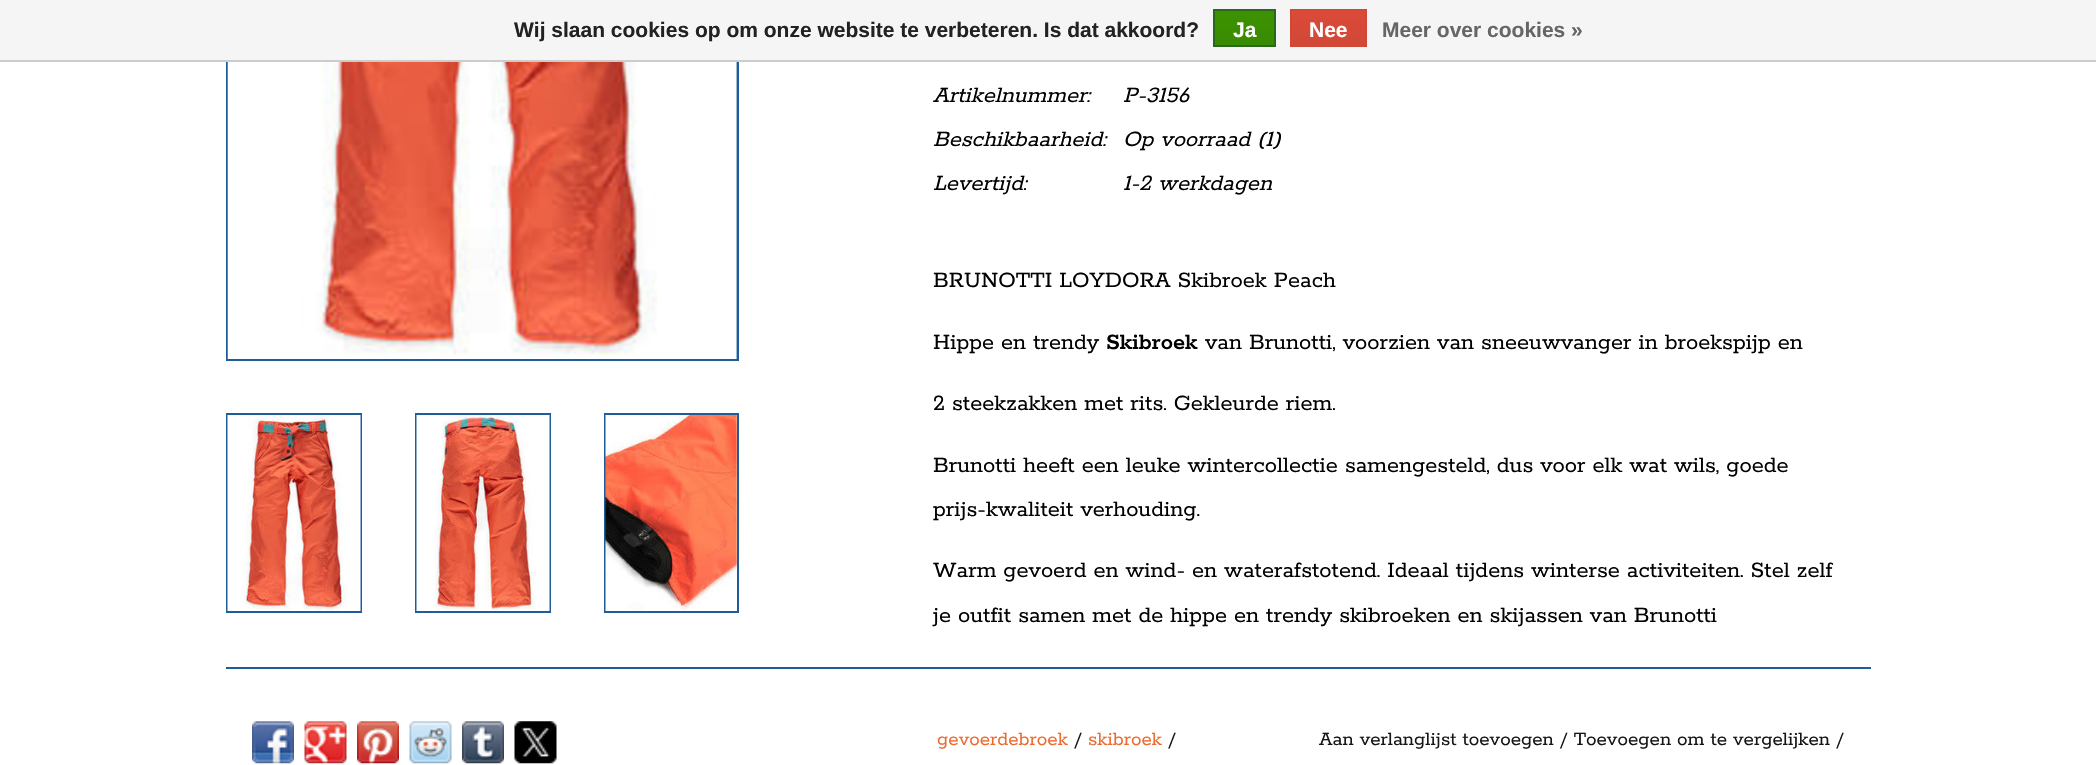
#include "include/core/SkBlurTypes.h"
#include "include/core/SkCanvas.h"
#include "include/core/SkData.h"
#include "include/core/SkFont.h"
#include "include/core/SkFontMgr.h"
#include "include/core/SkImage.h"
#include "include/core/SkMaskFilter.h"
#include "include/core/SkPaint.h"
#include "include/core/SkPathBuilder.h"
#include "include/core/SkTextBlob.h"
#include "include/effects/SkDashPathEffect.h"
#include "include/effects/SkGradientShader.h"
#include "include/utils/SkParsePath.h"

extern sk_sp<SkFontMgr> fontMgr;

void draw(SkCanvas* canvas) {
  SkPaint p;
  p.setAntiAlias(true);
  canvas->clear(SK_ColorWHITE);
  p.setStyle(SkPaint::kStroke_Style);
  p.setStrokeWidth(2);
  p.setColor(SkColorSetRGB(30, 93, 153));
  canvas->drawRect(SkRect::MakeLTRB(227, -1, 738, 360), p);
  p.setStyle(SkPaint::kFill_Style);
  p.setColor(SkColorSetRGB(245, 245, 245));
  canvas->drawRect(SkRect::MakeLTRB(0, 0, 2096, 60), p);
  p.setColor(SkColorSetRGB(204, 204, 204));
  canvas->drawRect(SkRect::MakeLTRB(0, 60, 2096, 62), p);
  {
    const SkColor colors[] = {SkColorSetRGB(60, 147, 0), SkColorSetRGB(57, 138, 0)};
    const float stops[] = {0, 1};
    const SkPoint ends[] = {{1244, 10}, {1244, 46}};
    p.setShader(SkGradientShader::MakeLinear(ends, colors, stops, 2, SkTileMode::kClamp));
    p.setAlpha(255);
  }
  canvas->drawRect(SkRect::MakeLTRB(1215, 11, 1274, 45), p);
  p.setStyle(SkPaint::kStroke_Style);
  p.setShader(nullptr);
  p.setColor(SkColorSetRGB(41, 105, 29));
  canvas->drawRect(SkRect::MakeLTRB(1214, 10, 1275, 46), p);
  p.setStyle(SkPaint::kFill_Style);
  {
    const SkColor colors[] = {SkColorSetRGB(220, 74, 56), SkColorSetRGB(209, 72, 54)};
    const float stops[] = {0, 1};
    const SkPoint ends[] = {{1328, 10}, {1328, 46}};
    p.setShader(SkGradientShader::MakeLinear(ends, colors, stops, 2, SkTileMode::kClamp));
    p.setAlpha(255);
  }
  canvas->drawRect(SkRect::MakeLTRB(1292, 11, 1365, 45), p);
  p.setStyle(SkPaint::kStroke_Style);
  p.setShader(nullptr);
  p.setColor(SkColorSetRGB(209, 72, 54));
  canvas->drawRect(SkRect::MakeLTRB(1291, 10, 1366, 46), p);
  p.setStyle(SkPaint::kFill_Style);
  p.setColor(SkColorSetRGB(32, 98, 161));
  canvas->drawRect(SkRect::MakeLTRB(736, 62, 737, 359), p);
  canvas->drawImageRect(SkImages::DeferredFromEncodedData(SkData::MakeFromFileName("images/1.png")), SkRect::MakeLTRB(227, 62, 737, 359), SkSamplingOptions());
  p.setStyle(SkPaint::kStroke_Style);
  p.setColor(SkColorSetRGB(30, 93, 153));
  canvas->drawRect(SkRect::MakeLTRB(227, 414, 361, 612), p);
  p.setStyle(SkPaint::kFill_Style);
  p.setColor(SkColorSetRGB(32, 98, 161));
  canvas->drawRect(SkRect::MakeLTRB(360, 415, 361, 611), p);
  canvas->drawImageRect(SkImages::DeferredFromEncodedData(SkData::MakeFromFileName("images/2.png")), SkRect::MakeLTRB(227, 415, 361, 611), SkSamplingOptions());
  p.setStyle(SkPaint::kStroke_Style);
  p.setColor(SkColorSetRGB(30, 93, 153));
  canvas->drawRect(SkRect::MakeLTRB(416, 414, 550, 612), p);
  p.setStyle(SkPaint::kFill_Style);
  p.setColor(SkColorSetRGB(32, 98, 161));
  canvas->drawRect(SkRect::MakeLTRB(549, 415, 550, 611), p);
  canvas->drawImageRect(SkImages::DeferredFromEncodedData(SkData::MakeFromFileName("images/3.png")), SkRect::MakeLTRB(416, 415, 550, 611), SkSamplingOptions());
  p.setStyle(SkPaint::kStroke_Style);
  p.setColor(SkColorSetRGB(30, 93, 153));
  canvas->drawRect(SkRect::MakeLTRB(605, 414, 738, 612), p);
  canvas->drawImageRect(SkImages::DeferredFromEncodedData(SkData::MakeFromFileName("images/4.png")), SkRect::MakeLTRB(605, 415, 737, 611), SkSamplingOptions());
  p.setStyle(SkPaint::kFill_Style);
  canvas->drawRect(SkRect::MakeLTRB(226, 667, 1871, 669), p);
  canvas->drawImageRect(SkImages::DeferredFromEncodedData(SkData::MakeFromFileName("images/5.png")), SkRect::MakeLTRB(252, 721, 294, 764), SkSamplingOptions());
  canvas->drawImageRect(SkImages::DeferredFromEncodedData(SkData::MakeFromFileName("images/6.png")), SkRect::MakeLTRB(304, 721, 347, 764), SkSamplingOptions());
  canvas->drawImageRect(SkImages::DeferredFromEncodedData(SkData::MakeFromFileName("images/7.png")), SkRect::MakeLTRB(357, 721, 399, 764), SkSamplingOptions());
  canvas->drawImageRect(SkImages::DeferredFromEncodedData(SkData::MakeFromFileName("images/8.png")), SkRect::MakeLTRB(409, 721, 452, 764), SkSamplingOptions());
  canvas->drawImageRect(SkImages::DeferredFromEncodedData(SkData::MakeFromFileName("images/9.png")), SkRect::MakeLTRB(462, 721, 504, 764), SkSamplingOptions());
  canvas->drawImageRect(SkImages::DeferredFromEncodedData(SkData::MakeFromFileName("images/10.png")), SkRect::MakeLTRB(514, 721, 557, 764), SkSamplingOptions());
  SkFont font1(fontMgr->matchFamilyStyle("Liberation Sans", SkFontStyle::Bold()), 21);
  font1.setSubpixel(true);
  p.setColor(SkColorSetRGB(34, 34, 34));
  canvas->drawString("Wij slaan cookies op om onze website te verbeteren. Is dat akkoord?", 514, 37, font1, p);
  p.setColor(SK_ColorWHITE);
  canvas->drawString("Ja", 1233, 37, font1, p);
  canvas->drawString("Nee", 1309, 37, font1, p);
  p.setColor(SkColorSetRGB(102, 102, 102));
  canvas->drawString("Meer over cookies »", 1382, 37, font1, p);
  SkFont font2(fontMgr->matchFamilyStyle("Rokkitt", SkFontStyle::Italic()), 24.5f);
  font2.setSubpixel(true);
  p.setColor(SkColorSetRGB(3, 0, 0));
  canvas->drawString("Artikelnummer:", 933, 102, font2, p);
  canvas->drawString("P-3156", 1123, 102, font2, p);
  canvas->drawString("Beschikbaarheid:", 933, 146, font2, p);
  canvas->drawString("Op voorraad (1)", 1123, 146, font2, p);
  canvas->drawString("Levertijd:", 933, 190, font2, p);
  canvas->drawString("1-2 werkdagen", 1123, 190, font2, p);
  SkFont font3(fontMgr->matchFamilyStyle("Rokkitt", SkFontStyle::Normal()), 24.5f);
  font3.setSubpixel(true);
  canvas->drawString("BRUNOTTI LOYDORA Skibroek Peach", 933, 287, font3, p);
  canvas->drawString("Hippe en trendy", 933, 349, font3, p);
  SkFont font4(fontMgr->matchFamilyStyle("Rokkitt", SkFontStyle(600, SkFontStyle::kNormal_Width, SkFontStyle::kUpright_Slant)), 24.5f);
  font4.setSubpixel(true);
  canvas->drawString("Skibroek", 1106, 349, font4, p);
  canvas->drawString("van Brunotti, voorzien van sneeuwvanger in broekspijp en", 1205, 349, font3, p);
  canvas->drawString("2 steekzakken met rits. Gekleurde riem.", 933, 410, font3, p);
  canvas->drawString("Brunotti heeft een leuke wintercollectie samengesteld, dus voor elk wat wils, goede", 933, 472, font3, p);
  canvas->drawString("prijs-kwaliteit verhouding.", 933, 516, font3, p);
  canvas->drawString("Warm gevoerd en wind- en waterafstotend. Ideaal tijdens winterse activiteiten. Stel zelf", 933, 577, font3, p);
  canvas->drawString("je outfit samen met de hippe en trendy skibroeken en skijassen van Brunotti", 933, 622, font3, p);
  SkFont font5(fontMgr->matchFamilyStyle("Rokkitt", SkFontStyle::Normal()), 21);
  font5.setSubpixel(true);
  p.setColor(SkColorSetRGB(234, 108, 50));
  canvas->drawString("gevoerdebroek", 937, 745, font5, p);
  p.setColor(SkColorSetRGB(23, 20, 20));
  canvas->drawString("/", 1074, 745, font5, p);
  p.setColor(SkColorSetRGB(234, 108, 50));
  canvas->drawString("skibroek", 1088, 745, font5, p);
  p.setColor(SkColorSetRGB(23, 20, 20));
  canvas->drawString("/", 1168, 745, font5, p);
  canvas->drawString("Aan verlanglijst toevoegen / Toevoegen om te vergelijken /", 1319, 745, font5, p);
}
